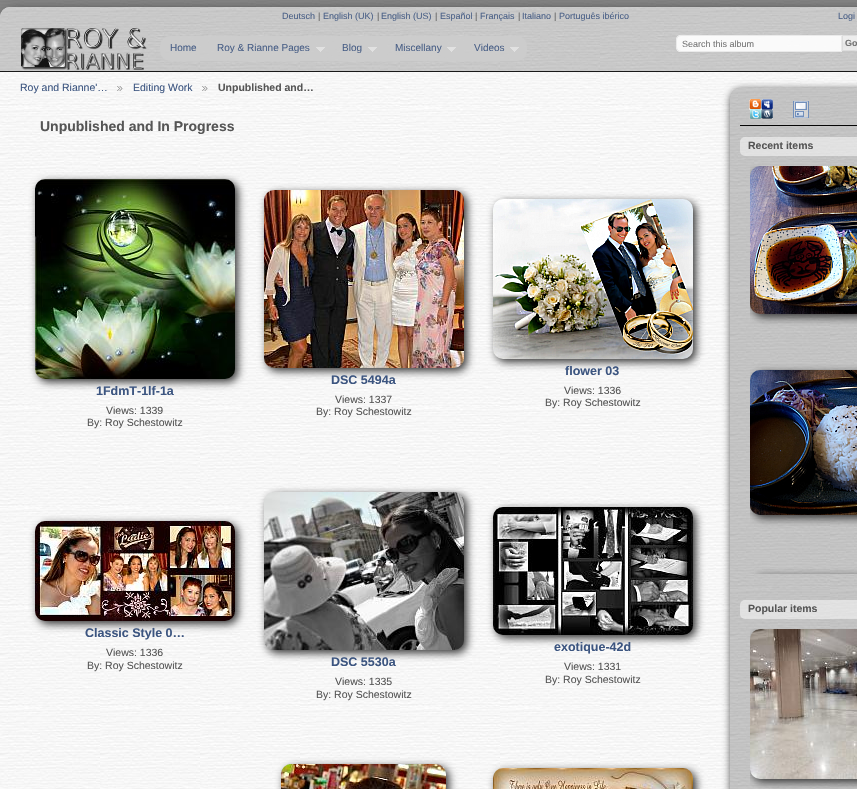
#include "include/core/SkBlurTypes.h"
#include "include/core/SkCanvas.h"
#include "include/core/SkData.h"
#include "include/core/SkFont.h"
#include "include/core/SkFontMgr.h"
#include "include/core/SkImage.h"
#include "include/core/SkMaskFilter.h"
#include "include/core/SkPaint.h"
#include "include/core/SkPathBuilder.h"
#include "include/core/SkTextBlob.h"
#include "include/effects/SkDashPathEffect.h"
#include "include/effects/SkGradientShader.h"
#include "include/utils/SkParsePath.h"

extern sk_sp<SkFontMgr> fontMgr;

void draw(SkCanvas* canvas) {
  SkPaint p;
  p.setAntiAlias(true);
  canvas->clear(SK_ColorWHITE);
  canvas->drawImageRect(SkImages::DeferredFromEncodedData(SkData::MakeFromFileName("images/1.png")), SkRect::MakeLTRB(0, 0, 857, 17), SkSamplingOptions());
  p.setColor(SkColorSetRGB(51, 51, 51));
  p.setMaskFilter(SkMaskFilter::MakeBlur(kNormal_SkBlurStyle, 6));
  canvas->drawRoundRect(SkRect::MakeLTRB(4, 11, 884, 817), 10, 10, p);
  p.setMaskFilter(nullptr);
  canvas->drawImageRect(SkImages::DeferredFromEncodedData(SkData::MakeFromFileName("images/2.png")), SkRect::MakeLTRB(0, 7, 857, 789), SkSamplingOptions());
  canvas->drawImageRect(SkImages::DeferredFromEncodedData(SkData::MakeFromFileName("images/3.png")), SkRect::MakeLTRB(0, 7, 857, 72), SkSamplingOptions());
  p.setColor(SkColorSetARGB(230, 5, 5, 5));
  canvas->drawRect(SkRect::MakeLTRB(0, 71, 857, 72), p);
  canvas->drawImageRect(SkImages::DeferredFromEncodedData(SkData::MakeFromFileName("images/4.png")), SkRect::MakeLTRB(21, 27, 147, 70), SkSamplingOptions());
  p.setColor(SkColorSetARGB(230, 204, 204, 204));
  canvas->drawRoundRect(SkRect::MakeLTRB(160, 36, 527, 61), 10, 10, p);
  canvas->drawImageRect(SkImages::DeferredFromEncodedData(SkData::MakeFromFileName("images/5.png")), SkRect::MakeLTRB(316, 47, 325, 52), SkSamplingOptions());
  canvas->drawImageRect(SkImages::DeferredFromEncodedData(SkData::MakeFromFileName("images/6.png")), SkRect::MakeLTRB(368, 47, 377, 52), SkSamplingOptions());
  canvas->drawImageRect(SkImages::DeferredFromEncodedData(SkData::MakeFromFileName("images/7.png")), SkRect::MakeLTRB(447, 47, 456, 52), SkSamplingOptions());
  canvas->drawImageRect(SkImages::DeferredFromEncodedData(SkData::MakeFromFileName("images/8.png")), SkRect::MakeLTRB(510, 47, 519, 52), SkSamplingOptions());
  p.setColor(SkColorSetARGB(230, 255, 255, 255));
  canvas->drawPath(SkPathBuilder().moveTo(681, 35).lineTo(842, 35).lineTo(842, 52).lineTo(681, 52).cubicTo(678, 52, 676, 50, 676, 47).lineTo(676, 40).cubicTo(676, 37, 678, 35, 681, 35).close().detach(), p);
  p.setStyle(SkPaint::kStroke_Style);
  p.setStrokeWidth(1);
  p.setColor(SkColorSetARGB(230, 232, 232, 232));
  canvas->drawPath(SkPathBuilder().moveTo(681, 35.5f).lineTo(841.5f, 35.5f).lineTo(841.5f, 51.5f).lineTo(681, 51.5f).cubicTo(678.5f, 51.5f, 676.5f, 49.5f, 676.5f, 47).lineTo(676.5f, 40).cubicTo(676.5f, 37.5f, 678.5f, 35.5f, 681, 35.5f).close().detach(), p);
  p.setStyle(SkPaint::kFill_Style);
  p.setColor(SkColorSetARGB(230, 230, 230, 230));
  canvas->drawPath(SkPathBuilder().moveTo(842, 35).lineTo(855, 35).cubicTo(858, 35, 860, 37, 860, 40).lineTo(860, 46).cubicTo(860, 49, 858, 51, 855, 51).lineTo(842, 51).close().detach(), p);
  canvas->drawImageRect(SkImages::DeferredFromEncodedData(SkData::MakeFromFileName("images/9.png")), SkRect::MakeLTRB(842, 35, 857, 51), SkSamplingOptions());
  p.setStyle(SkPaint::kStroke_Style);
  p.setColor(SkColorSetARGB(230, 219, 219, 219));
  canvas->drawPath(SkPathBuilder().moveTo(842.5f, 35.5f).lineTo(855, 35.5f).cubicTo(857.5f, 35.5f, 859.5f, 37.5f, 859.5f, 40).lineTo(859.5f, 46).cubicTo(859.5f, 48.5f, 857.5f, 50.5f, 855, 50.5f).lineTo(842.5f, 50.5f).close().detach(), p);
  canvas->drawImageRect(SkImages::DeferredFromEncodedData(SkData::MakeFromFileName("images/10.png")), SkRect::MakeLTRB(117, 86, 123, 91), SkSamplingOptions());
  canvas->drawImageRect(SkImages::DeferredFromEncodedData(SkData::MakeFromFileName("images/11.png")), SkRect::MakeLTRB(202, 86, 208, 91), SkSamplingOptions());
  p.setStyle(SkPaint::kFill_Style);
  p.setColor(SkColorSetRGB(51, 51, 51));
  p.setMaskFilter(SkMaskFilter::MakeBlur(kNormal_SkBlurStyle, 4));
  canvas->drawRoundRect(SkRect::MakeLTRB(38, 182, 238, 382), 10, 10, p);
  p.setMaskFilter(nullptr);
  canvas->drawImageRect(SkImages::DeferredFromEncodedData(SkData::MakeFromFileName("images/12.png")), SkRect::MakeLTRB(35, 179, 235, 379), SkSamplingOptions());
  p.setMaskFilter(SkMaskFilter::MakeBlur(kNormal_SkBlurStyle, 4));
  canvas->drawRoundRect(SkRect::MakeLTRB(267, 193, 467, 371), 10, 10, p);
  p.setMaskFilter(nullptr);
  canvas->drawImageRect(SkImages::DeferredFromEncodedData(SkData::MakeFromFileName("images/13.png")), SkRect::MakeLTRB(264, 190, 464, 368), SkSamplingOptions());
  p.setMaskFilter(SkMaskFilter::MakeBlur(kNormal_SkBlurStyle, 4));
  canvas->drawRoundRect(SkRect::MakeLTRB(496, 202, 696, 362), 10, 10, p);
  p.setMaskFilter(nullptr);
  canvas->drawImageRect(SkImages::DeferredFromEncodedData(SkData::MakeFromFileName("images/14.png")), SkRect::MakeLTRB(493, 199, 693, 359), SkSamplingOptions());
  p.setMaskFilter(SkMaskFilter::MakeBlur(kNormal_SkBlurStyle, 4));
  canvas->drawRoundRect(SkRect::MakeLTRB(38, 524, 238, 624), 10, 10, p);
  p.setMaskFilter(nullptr);
  canvas->drawImageRect(SkImages::DeferredFromEncodedData(SkData::MakeFromFileName("images/15.png")), SkRect::MakeLTRB(35, 521, 235, 621), SkSamplingOptions());
  p.setMaskFilter(SkMaskFilter::MakeBlur(kNormal_SkBlurStyle, 4));
  canvas->drawRoundRect(SkRect::MakeLTRB(267, 495, 467, 653), 10, 10, p);
  p.setMaskFilter(nullptr);
  canvas->drawImageRect(SkImages::DeferredFromEncodedData(SkData::MakeFromFileName("images/16.png")), SkRect::MakeLTRB(264, 492, 464, 650), SkSamplingOptions());
  p.setMaskFilter(SkMaskFilter::MakeBlur(kNormal_SkBlurStyle, 4));
  canvas->drawRoundRect(SkRect::MakeLTRB(496, 510, 696, 638), 10, 10, p);
  p.setMaskFilter(nullptr);
  canvas->drawImageRect(SkImages::DeferredFromEncodedData(SkData::MakeFromFileName("images/17.png")), SkRect::MakeLTRB(493, 507, 693, 635), SkSamplingOptions());
  p.setMaskFilter(SkMaskFilter::MakeBlur(kNormal_SkBlurStyle, 4));
  canvas->drawRoundRect(SkRect::MakeLTRB(284, 767, 449, 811), 10, 10, p);
  p.setMaskFilter(nullptr);
  canvas->drawImageRect(SkImages::DeferredFromEncodedData(SkData::MakeFromFileName("images/18.png")), SkRect::MakeLTRB(281, 764, 446, 789), SkSamplingOptions());
  p.setMaskFilter(SkMaskFilter::MakeBlur(kNormal_SkBlurStyle, 4));
  canvas->drawRoundRect(SkRect::MakeLTRB(496, 771, 696, 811), 10, 10, p);
  p.setMaskFilter(nullptr);
  canvas->drawImageRect(SkImages::DeferredFromEncodedData(SkData::MakeFromFileName("images/19.png")), SkRect::MakeLTRB(493, 768, 693, 789), SkSamplingOptions());
  p.setMaskFilter(SkMaskFilter::MakeBlur(kNormal_SkBlurStyle, 4));
  canvas->drawRoundRect(SkRect::MakeLTRB(731, 90, 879, 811), 10, 10, p);
  p.setMaskFilter(nullptr);
  canvas->drawImageRect(SkImages::DeferredFromEncodedData(SkData::MakeFromFileName("images/20.png")), SkRect::MakeLTRB(730, 88, 857, 789), SkSamplingOptions());
  p.setColor(SkColorSetRGB(5, 5, 5));
  canvas->drawRect(SkRect::MakeLTRB(740, 125, 857, 126), p);
  canvas->drawImageRect(SkImages::DeferredFromEncodedData(SkData::MakeFromFileName("images/21.png")), SkRect::MakeLTRB(749, 99, 773, 119), SkSamplingOptions());
  canvas->drawImageRect(SkImages::DeferredFromEncodedData(SkData::MakeFromFileName("images/22.png")), SkRect::MakeLTRB(793, 101, 809, 118), SkSamplingOptions());
  p.setColor(SkColorSetARGB(128, 255, 255, 255));
  canvas->drawRoundRect(SkRect::MakeLTRB(740, 137, 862, 156), 5, 5, p);
  canvas->save();
  canvas->clipRect(SkRect::MakeLTRB(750, 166, 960, 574));
  p.setColor(SkColorSetRGB(51, 51, 51));
  p.setMaskFilter(SkMaskFilter::MakeBlur(kNormal_SkBlurStyle, 4));
  canvas->drawRoundRect(SkRect::MakeLTRB(753, 169, 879, 317), 10, 10, p);
  p.setMaskFilter(nullptr);
  canvas->restore();
  canvas->drawImageRect(SkImages::DeferredFromEncodedData(SkData::MakeFromFileName("images/23.png")), SkRect::MakeLTRB(750, 166, 857, 314), SkSamplingOptions());
  canvas->save();
  canvas->clipRect(SkRect::MakeLTRB(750, 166, 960, 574));
  p.setMaskFilter(SkMaskFilter::MakeBlur(kNormal_SkBlurStyle, 4));
  canvas->drawRoundRect(SkRect::MakeLTRB(753, 373, 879, 518), 10, 10, p);
  p.setMaskFilter(nullptr);
  canvas->restore();
  canvas->drawImageRect(SkImages::DeferredFromEncodedData(SkData::MakeFromFileName("images/24.png")), SkRect::MakeLTRB(750, 370, 857, 515), SkSamplingOptions());
  p.setColor(SkColorSetARGB(128, 255, 255, 255));
  canvas->drawRoundRect(SkRect::MakeLTRB(740, 600, 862, 619), 5, 5, p);
  canvas->save();
  canvas->clipRect(SkRect::MakeLTRB(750, 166, 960, 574));
  p.setColor(SkColorSetRGB(51, 51, 51));
  p.setMaskFilter(SkMaskFilter::MakeBlur(kNormal_SkBlurStyle, 4));
  canvas->drawRoundRect(SkRect::MakeLTRB(753, 577, 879, 725), 10, 10, p);
  p.setMaskFilter(nullptr);
  canvas->restore();
  canvas->save();
  canvas->clipRect(SkRect::MakeLTRB(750, 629, 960, 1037));
  p.setMaskFilter(SkMaskFilter::MakeBlur(kNormal_SkBlurStyle, 4));
  canvas->drawRoundRect(SkRect::MakeLTRB(753, 632, 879, 782), 10, 10, p);
  p.setMaskFilter(nullptr);
  canvas->restore();
  canvas->drawImageRect(SkImages::DeferredFromEncodedData(SkData::MakeFromFileName("images/25.png")), SkRect::MakeLTRB(750, 629, 857, 779), SkSamplingOptions());
  SkFont font1(fontMgr->matchFamilyStyle("Liberation Sans", SkFontStyle::Normal()), 9);
  font1.setSubpixel(true);
  p.setColor(SkColorSetRGB(74, 96, 135));
  canvas->drawString("Deutsch", 282, 19, font1, p);
  p.setColor(SkColorSetRGB(97, 97, 97));
  canvas->drawString("|", 318, 19, font1, p);
  p.setColor(SkColorSetRGB(74, 96, 135));
  canvas->drawString("English (UK)", 323, 19, font1, p);
  p.setColor(SkColorSetRGB(97, 97, 97));
  canvas->drawString("|", 377, 19, font1, p);
  p.setColor(SkColorSetRGB(74, 96, 135));
  canvas->drawString("English (US)", 381, 19, font1, p);
  p.setColor(SkColorSetRGB(97, 97, 97));
  canvas->drawString("|", 435, 19, font1, p);
  p.setColor(SkColorSetRGB(74, 96, 135));
  canvas->drawString("Español", 440, 19, font1, p);
  p.setColor(SkColorSetRGB(97, 97, 97));
  canvas->drawString("|", 475, 19, font1, p);
  p.setColor(SkColorSetRGB(74, 96, 135));
  canvas->drawString("Français", 480, 19, font1, p);
  p.setColor(SkColorSetRGB(97, 97, 97));
  canvas->drawString("|", 518, 19, font1, p);
  p.setColor(SkColorSetRGB(74, 96, 135));
  canvas->drawString("Italiano", 522, 19, font1, p);
  p.setColor(SkColorSetRGB(97, 97, 97));
  canvas->drawString("|", 554, 19, font1, p);
  p.setColor(SkColorSetRGB(74, 96, 135));
  canvas->drawString("Português ibérico", 559, 19, font1, p);
  canvas->drawString("Logi", 838, 19, font1, p);
  SkFont font2(fontMgr->matchFamilyStyle("Liberation Sans", SkFontStyle::Normal()), 10);
  font2.setSubpixel(true);
  canvas->drawString("Home", 170, 51, font2, p);
  canvas->drawString("Roy & Rianne Pages", 217, 51, font2, p);
  canvas->drawString("Blog", 342, 51, font2, p);
  canvas->drawString("Miscellany", 395, 51, font2, p);
  canvas->drawString("Videos", 474, 51, font2, p);
  p.setColor(SkColorSetRGB(117, 117, 117));
  canvas->drawString("Search this album", 682, 47, font1, p);
  SkFont font3(fontMgr->matchFamilyStyle("Liberation Sans", SkFontStyle::Bold()), 9);
  font3.setSubpixel(true);
  canvas->drawString("Go", 845, 46, font3, p);
  SkFont font4(fontMgr->matchFamilyStyle("Liberation Sans", SkFontStyle::Normal()), 10.5f);
  font4.setSubpixel(true);
  p.setColor(SkColorSetRGB(60, 85, 128));
  canvas->drawString("Roy and Rianne'…", 20, 91, font4, p);
  canvas->drawString("Editing Work", 133, 91, font4, p);
  SkFont font5(fontMgr->matchFamilyStyle("Liberation Sans", SkFontStyle::Bold()), 10.5f);
  font5.setSubpixel(true);
  p.setColor(SkColorSetRGB(85, 85, 85));
  canvas->drawString("Unpublished and…", 218, 91, font5, p);
  SkFont font6(fontMgr->matchFamilyStyle("Liberation Sans", SkFontStyle::Bold()), 14);
  font6.setSubpixel(true);
  canvas->drawString("Unpublished and In Progress", 40, 131, font6, p);
  SkFont font7(fontMgr->matchFamilyStyle("Liberation Sans", SkFontStyle::Bold()), 12.5f);
  font7.setSubpixel(true);
  p.setColor(SkColorSetRGB(60, 85, 128));
  canvas->drawString("1FdmT-1lf-1a", 96, 395, font7, p);
  p.setColor(SkColorSetRGB(85, 85, 85));
  canvas->drawString("Views: 1339", 106, 414, font4, p);
  canvas->drawString("By: Roy Schestowitz", 87, 426, font4, p);
  p.setColor(SkColorSetRGB(60, 85, 128));
  canvas->drawString("DSC 5494a", 331, 384, font7, p);
  p.setColor(SkColorSetRGB(85, 85, 85));
  canvas->drawString("Views: 1337", 335, 403, font4, p);
  canvas->drawString("By: Roy Schestowitz", 316, 415, font4, p);
  p.setColor(SkColorSetRGB(60, 85, 128));
  canvas->drawString("flower 03", 565, 375, font7, p);
  p.setColor(SkColorSetRGB(85, 85, 85));
  canvas->drawString("Views: 1336", 564, 394, font4, p);
  canvas->drawString("By: Roy Schestowitz", 545, 406, font4, p);
  p.setColor(SkColorSetRGB(60, 85, 128));
  canvas->drawString("Classic Style 0…", 85, 637, font7, p);
  p.setColor(SkColorSetRGB(85, 85, 85));
  canvas->drawString("Views: 1336", 106, 656, font4, p);
  canvas->drawString("By: Roy Schestowitz", 87, 669, font4, p);
  p.setColor(SkColorSetRGB(60, 85, 128));
  canvas->drawString("DSC 5530a", 331, 666, font7, p);
  p.setColor(SkColorSetRGB(85, 85, 85));
  canvas->drawString("Views: 1335", 335, 685, font4, p);
  canvas->drawString("By: Roy Schestowitz", 316, 698, font4, p);
  p.setColor(SkColorSetRGB(60, 85, 128));
  canvas->drawString("exotique-42d", 554, 651, font7, p);
  p.setColor(SkColorSetRGB(85, 85, 85));
  canvas->drawString("Views: 1331", 564, 670, font4, p);
  canvas->drawString("By: Roy Schestowitz", 545, 683, font4, p);
  canvas->drawString("Recent items", 748, 149, font5, p);
  canvas->drawString("Popular items", 748, 612, font5, p);
}
